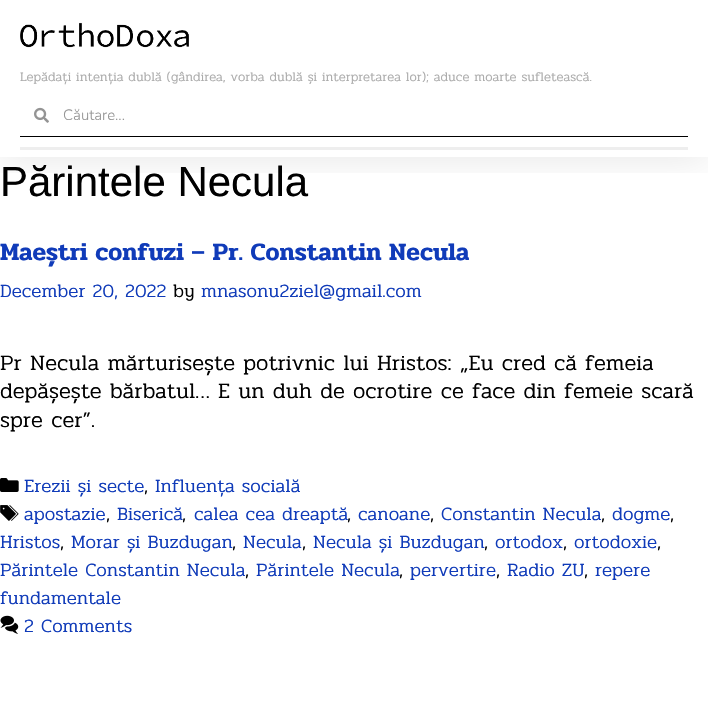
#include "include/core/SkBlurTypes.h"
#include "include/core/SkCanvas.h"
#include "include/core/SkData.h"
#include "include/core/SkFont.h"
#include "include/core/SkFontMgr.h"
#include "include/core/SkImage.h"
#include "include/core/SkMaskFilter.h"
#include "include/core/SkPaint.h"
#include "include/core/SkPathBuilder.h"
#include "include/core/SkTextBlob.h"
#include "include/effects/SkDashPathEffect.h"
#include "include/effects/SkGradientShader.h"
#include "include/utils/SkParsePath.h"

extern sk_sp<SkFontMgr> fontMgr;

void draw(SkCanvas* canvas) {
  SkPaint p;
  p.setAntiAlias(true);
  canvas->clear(SK_ColorWHITE);
  canvas->save();
  canvas->clipRect(SkRect::MakeLTRB(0, 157, 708, 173));
  p.setColor(SkColorSetARGB(26, 0, 0, 0));
  p.setMaskFilter(SkMaskFilter::MakeBlur(kNormal_SkBlurStyle, 19));
  canvas->drawRect(SkRect::MakeLTRB(0, 0, 708, 157), p);
  p.setMaskFilter(nullptr);
  canvas->restore();
  canvas->drawImageRect(SkImages::DeferredFromEncodedData(SkData::MakeFromFileName("images/1.png")), SkRect::MakeLTRB(20, 22, 189, 48), SkSamplingOptions());
  p.setColor(SK_ColorBLACK);
  canvas->drawRect(SkRect::MakeLTRB(20, 136, 688, 137), p);
  canvas->drawImageRect(SkImages::DeferredFromEncodedData(SkData::MakeFromFileName("images/2.png")), SkRect::MakeLTRB(34, 107, 49, 123), SkSamplingOptions());
  p.setColor(SkColorSetRGB(238, 238, 238));
  canvas->drawRect(SkRect::MakeLTRB(20, 147, 688, 150), p);
  canvas->drawImageRect(SkImages::DeferredFromEncodedData(SkData::MakeFromFileName("images/3.png")), SkRect::MakeLTRB(0, 478, 19, 492), SkSamplingOptions());
  canvas->drawImageRect(SkImages::DeferredFromEncodedData(SkData::MakeFromFileName("images/4.png")), SkRect::MakeLTRB(0, 505, 19, 521), SkSamplingOptions());
  canvas->drawImageRect(SkImages::DeferredFromEncodedData(SkData::MakeFromFileName("images/5.png")), SkRect::MakeLTRB(0, 615, 19, 634), SkSamplingOptions());
  SkFont font1(fontMgr->matchFamilyStyle("Pridi", SkFontStyle(300, SkFontStyle::kNormal_Width, SkFontStyle::kUpright_Slant)), 13);
  font1.setSubpixel(true);
  p.setColor(SkColorSetRGB(172, 172, 172));
  canvas->drawString("Lepădați intenția dublă (gândirea, vorba dublă și interpretarea lor); aduce moarte sufletească.", 20, 81, font1, p);
  SkFont font2(fontMgr->matchFamilyStyle("Nunito", SkFontStyle(300, SkFontStyle::kNormal_Width, SkFontStyle::kUpright_Slant)), 15);
  font2.setSubpixel(true);
  p.setColor(SkColorSetRGB(148, 148, 148));
  canvas->drawString("Căutare...", 63, 120, font2, p);
  SkFont font3(fontMgr->matchFamilyStyle("Liberation Sans", SkFontStyle::Normal()), 42);
  font3.setSubpixel(true);
  p.setColor(SK_ColorBLACK);
  canvas->drawString("Părintele Necula", 0, 196, font3, p);
  SkFont font4(fontMgr->matchFamilyStyle("Pridi", SkFontStyle(600, SkFontStyle::kNormal_Width, SkFontStyle::kUpright_Slant)), 25);
  font4.setSubpixel(true);
  p.setColor(SkColorSetRGB(16, 59, 185));
  canvas->drawString("Maeștri confuzi – Pr. Constantin Necula", 0, 260, font4, p);
  SkFont font5(fontMgr->matchFamilyStyle("Pridi", SkFontStyle(300, SkFontStyle::kNormal_Width, SkFontStyle::kUpright_Slant)), 18.75f);
  font5.setSubpixel(true);
  canvas->drawString("December 20, 2022", 0, 297, font5, p);
  p.setColor(SK_ColorBLACK);
  canvas->drawString("by", 173, 297, font5, p);
  p.setColor(SkColorSetRGB(16, 59, 185));
  canvas->drawString("mnasonu2ziel@gmail.com", 201, 297, font5, p);
  SkFont font6(fontMgr->matchFamilyStyle("Pridi", SkFontStyle(300, SkFontStyle::kNormal_Width, SkFontStyle::kUpright_Slant)), 22);
  font6.setSubpixel(true);
  p.setColor(SK_ColorBLACK);
  canvas->drawString("Pr Necula mărturisește potrivnic lui Hristos: „Eu cred că femeia", 0, 370, font6, p);
  canvas->drawString("depășește bărbatul… E un duh de ocrotire ce face din femeie scară", 0, 398, font6, p);
  canvas->drawString("spre cer”.", 0, 427, font6, p);
  p.setColor(SkColorSetRGB(16, 59, 185));
  canvas->drawString("Erezii și secte", 24, 492, font5, p);
  p.setColor(SK_ColorBLACK);
  canvas->drawString(",", 144, 492, font5, p);
  p.setColor(SkColorSetRGB(16, 59, 185));
  canvas->drawString("Influența socială", 155, 492, font5, p);
  canvas->drawString("apostazie", 24, 520, font5, p);
  p.setColor(SK_ColorBLACK);
  canvas->drawString(",", 106, 520, font5, p);
  p.setColor(SkColorSetRGB(16, 59, 185));
  canvas->drawString("Biserică", 117, 520, font5, p);
  p.setColor(SK_ColorBLACK);
  canvas->drawString(",", 182, 520, font5, p);
  p.setColor(SkColorSetRGB(16, 59, 185));
  canvas->drawString("calea cea dreaptă", 194, 520, font5, p);
  p.setColor(SK_ColorBLACK);
  canvas->drawString(",", 347, 520, font5, p);
  p.setColor(SkColorSetRGB(16, 59, 185));
  canvas->drawString("canoane", 358, 520, font5, p);
  p.setColor(SK_ColorBLACK);
  canvas->drawString(",", 430, 520, font5, p);
  p.setColor(SkColorSetRGB(16, 59, 185));
  canvas->drawString("Constantin Necula", 441, 520, font5, p);
  p.setColor(SK_ColorBLACK);
  canvas->drawString(",", 601, 520, font5, p);
  p.setColor(SkColorSetRGB(16, 59, 185));
  canvas->drawString("dogme", 612, 520, font5, p);
  p.setColor(SK_ColorBLACK);
  canvas->drawString(",", 670, 520, font5, p);
  p.setColor(SkColorSetRGB(16, 59, 185));
  canvas->drawString("Hristos", 0, 548, font5, p);
  p.setColor(SK_ColorBLACK);
  canvas->drawString(",", 60, 548, font5, p);
  p.setColor(SkColorSetRGB(16, 59, 185));
  canvas->drawString("Morar și Buzdugan", 71, 548, font5, p);
  p.setColor(SK_ColorBLACK);
  canvas->drawString(",", 232, 548, font5, p);
  p.setColor(SkColorSetRGB(16, 59, 185));
  canvas->drawString("Necula", 243, 548, font5, p);
  p.setColor(SK_ColorBLACK);
  canvas->drawString(",", 302, 548, font5, p);
  p.setColor(SkColorSetRGB(16, 59, 185));
  canvas->drawString("Necula și Buzdugan", 313, 548, font5, p);
  p.setColor(SK_ColorBLACK);
  canvas->drawString(",", 484, 548, font5, p);
  p.setColor(SkColorSetRGB(16, 59, 185));
  canvas->drawString("ortodox", 495, 548, font5, p);
  p.setColor(SK_ColorBLACK);
  canvas->drawString(",", 563, 548, font5, p);
  p.setColor(SkColorSetRGB(16, 59, 185));
  canvas->drawString("ortodoxie", 574, 548, font5, p);
  p.setColor(SK_ColorBLACK);
  canvas->drawString(",", 657, 548, font5, p);
  p.setColor(SkColorSetRGB(16, 59, 185));
  canvas->drawString("Părintele Constantin Necula", 0, 576, font5, p);
  p.setColor(SK_ColorBLACK);
  canvas->drawString(",", 245, 576, font5, p);
  p.setColor(SkColorSetRGB(16, 59, 185));
  canvas->drawString("Părintele Necula", 256, 576, font5, p);
  p.setColor(SK_ColorBLACK);
  canvas->drawString(",", 399, 576, font5, p);
  p.setColor(SkColorSetRGB(16, 59, 185));
  canvas->drawString("pervertire", 410, 576, font5, p);
  p.setColor(SK_ColorBLACK);
  canvas->drawString(",", 496, 576, font5, p);
  p.setColor(SkColorSetRGB(16, 59, 185));
  canvas->drawString("Radio ZU", 507, 576, font5, p);
  p.setColor(SK_ColorBLACK);
  canvas->drawString(",", 584, 576, font5, p);
  p.setColor(SkColorSetRGB(16, 59, 185));
  canvas->drawString("repere", 595, 576, font5, p);
  canvas->drawString("fundamentale", 0, 604, font5, p);
  canvas->drawString("2 Comments", 24, 632, font5, p);
}
